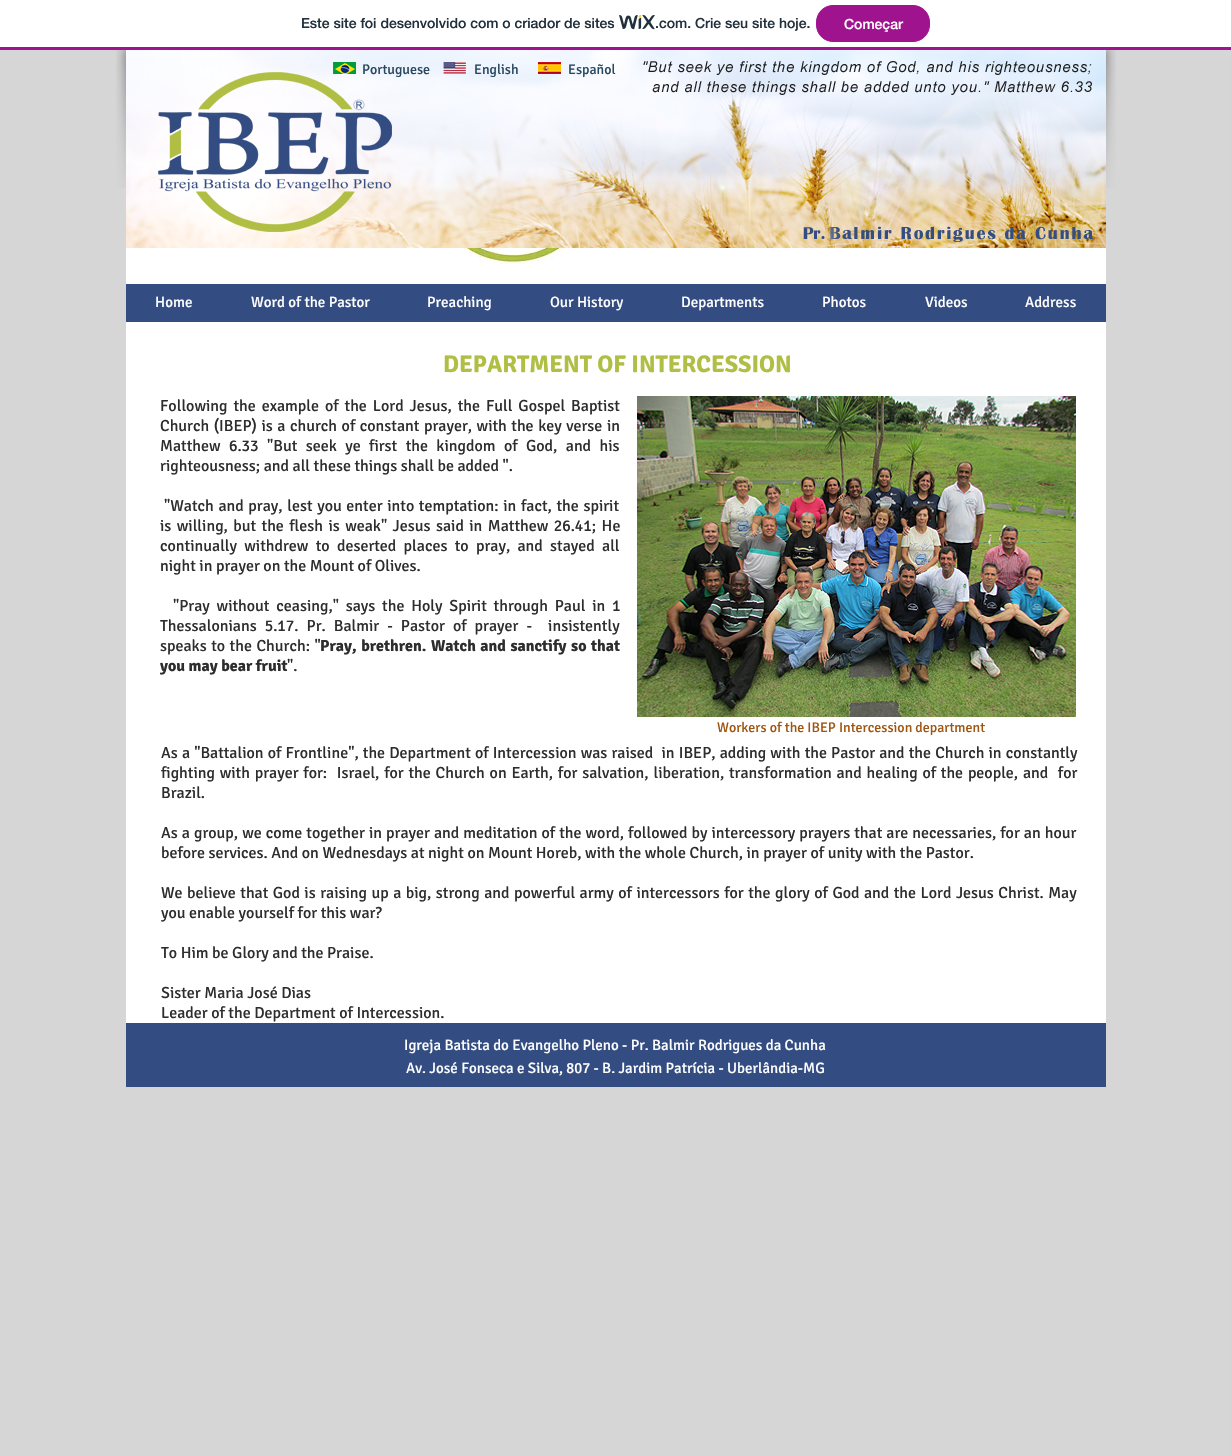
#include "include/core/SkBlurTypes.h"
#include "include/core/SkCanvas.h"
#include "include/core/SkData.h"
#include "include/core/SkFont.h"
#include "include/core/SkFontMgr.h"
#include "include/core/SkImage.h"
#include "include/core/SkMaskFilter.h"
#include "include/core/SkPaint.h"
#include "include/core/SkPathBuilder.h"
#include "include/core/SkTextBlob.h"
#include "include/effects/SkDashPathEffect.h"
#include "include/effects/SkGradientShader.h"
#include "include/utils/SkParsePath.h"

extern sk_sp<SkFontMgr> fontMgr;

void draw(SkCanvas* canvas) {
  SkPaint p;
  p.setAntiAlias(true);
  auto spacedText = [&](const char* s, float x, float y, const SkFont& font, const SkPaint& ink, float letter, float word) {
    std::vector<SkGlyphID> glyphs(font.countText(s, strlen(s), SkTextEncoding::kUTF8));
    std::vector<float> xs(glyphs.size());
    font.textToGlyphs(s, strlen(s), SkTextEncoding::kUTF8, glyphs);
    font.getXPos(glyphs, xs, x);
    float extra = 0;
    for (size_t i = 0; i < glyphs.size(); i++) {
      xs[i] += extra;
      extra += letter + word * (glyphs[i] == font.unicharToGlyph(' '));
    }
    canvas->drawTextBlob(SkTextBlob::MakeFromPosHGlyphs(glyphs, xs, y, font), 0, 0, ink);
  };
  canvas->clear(SkColorSetRGB(214, 214, 214));
  p.setColor(SK_ColorWHITE);
  canvas->drawRect(SkRect::MakeLTRB(0, 0, 1231, 47), p);
  p.setColor(SkColorSetRGB(160, 19, 142));
  canvas->drawRect(SkRect::MakeLTRB(0, 47, 1231, 50), p);
  canvas->drawImageRect(SkImages::DeferredFromEncodedData(SkData::MakeFromFileName("images/1.png")), SkRect::MakeLTRB(619, 15, 655, 30), SkSamplingOptions());
  canvas->drawRoundRect(SkRect::MakeLTRB(816.5f, 5.5f, 929.5f, 41.5f), 16.5f, 16.5f, p);
  p.setStyle(SkPaint::kStroke_Style);
  p.setStrokeWidth(1);
  canvas->drawRoundRect(SkRect::MakeLTRB(816.5f, 5.5f, 929.5f, 41.5f), 16.5f, 16.5f, p);
  canvas->drawImageRect(SkImages::DeferredFromEncodedData(SkData::MakeFromFileName("images/2.png")), SkRect::MakeLTRB(116, 50, 126, 188), SkSamplingOptions());
  canvas->drawImageRect(SkImages::DeferredFromEncodedData(SkData::MakeFromFileName("images/3.png")), SkRect::MakeLTRB(1106, 50, 1116, 188), SkSamplingOptions());
  p.setStyle(SkPaint::kFill_Style);
  p.setColor(SK_ColorWHITE);
  canvas->drawRect(SkRect::MakeLTRB(126, 248, 1106, 1023), p);
  canvas->drawImageRect(SkImages::DeferredFromEncodedData(SkData::MakeFromFileName("images/4.png")), SkRect::MakeLTRB(126, 50, 1106, 248), SkSamplingOptions());
  canvas->drawImageRect(SkImages::DeferredFromEncodedData(SkData::MakeFromFileName("images/5.png")), SkRect::MakeLTRB(333, 62, 356, 74), SkSamplingOptions());
  canvas->drawImageRect(SkImages::DeferredFromEncodedData(SkData::MakeFromFileName("images/6.png")), SkRect::MakeLTRB(443, 62, 466, 74), SkSamplingOptions());
  canvas->drawImageRect(SkImages::DeferredFromEncodedData(SkData::MakeFromFileName("images/7.png")), SkRect::MakeLTRB(538, 62, 561, 74), SkSamplingOptions());
  canvas->drawImageRect(SkImages::DeferredFromEncodedData(SkData::MakeFromFileName("images/8.png")), SkRect::MakeLTRB(413, 248, 613, 265), SkSamplingOptions());
  p.setColor(SkColorSetRGB(51, 77, 130));
  canvas->drawRect(SkRect::MakeLTRB(126, 284, 1106, 322), p);
  canvas->drawImageRect(SkImages::DeferredFromEncodedData(SkData::MakeFromFileName("images/9.png")), SkRect::MakeLTRB(637, 396, 1076, 717), SkSamplingOptions());
  canvas->drawRect(SkRect::MakeLTRB(126, 1023, 1106, 1087), p);
  SkFont font1(fontMgr->matchFamilyStyle("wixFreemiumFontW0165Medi", SkFontStyle(500, SkFontStyle::kNormal_Width, SkFontStyle::kUpright_Slant)), 14);
  font1.setSubpixel(true);
  p.setColor(SkColorSetRGB(32, 48, 60));
  canvas->drawString("Este site foi desenvolvido com o criador de sites", 301, 28, font1, p);
  canvas->drawString(".com. Crie seu site hoje.", 655, 28, font1, p);
  p.setColor(SK_ColorWHITE);
  canvas->drawString("Começar", 844, 29, font1, p);
  SkFont font2(fontMgr->matchFamilyStyle("Signika", SkFontStyle::Normal()), 14);
  font2.setSubpixel(true);
  p.setColor(SkColorSetRGB(40, 71, 93));
  canvas->drawString("Portuguese", 362, 74, font2, p);
  canvas->drawString("English", 474, 74, font2, p);
  canvas->drawString("Español", 568, 74, font2, p);
  SkFont font3(fontMgr->matchFamilyStyle("Signika", SkFontStyle::Normal()), 15);
  font3.setSubpixel(true);
  p.setColor(SK_ColorWHITE);
  canvas->drawString("Home", 155, 307, font3, p);
  canvas->drawString("Word of the Pastor", 251, 307, font3, p);
  canvas->drawString("Preaching", 427, 307, font3, p);
  canvas->drawString("Our History", 550, 307, font3, p);
  canvas->drawString("Departments", 681, 307, font3, p);
  canvas->drawString("Photos", 822, 307, font3, p);
  canvas->drawString("Videos", 925, 307, font3, p);
  canvas->drawString("Address", 1025, 307, font3, p);
  SkFont font4(fontMgr->matchFamilyStyle("Signika", SkFontStyle::Bold()), 24);
  font4.setSubpixel(true);
  p.setColor(SkColorSetRGB(176, 190, 68));
  canvas->drawString("DEPARTMENT OF INTERCESSION", 443, 372, font4, p);
  SkFont font5(fontMgr->matchFamilyStyle("Signika", SkFontStyle::Normal()), 16);
  font5.setSubpixel(true);
  p.setColor(SkColorSetRGB(45, 45, 45));
  spacedText("Following the example of the Lord Jesus, the Full Gospel Baptist", 160, 411, font5, p, 0, 2.4f);
  spacedText("Church (IBEP) is a church of constant prayer, with the key verse in", 160, 431, font5, p, 0, 1);
  spacedText("Matthew 6.33 \"But seek ye first the kingdom of God, and his", 160, 451, font5, p, 0, 4.9f);
  canvas->drawString("righteousness; and all these things shall be added \".", 160, 471, font5, p);
  spacedText("\"Watch and pray, lest you enter into temptation: in fact, the spirit", 164, 511, font5, p, 0, 1.1f);
  spacedText("is willing, but the flesh is weak\" Jesus said in Matthew 26.41; He", 160, 531, font5, p, 0, 1.9f);
  spacedText("continually withdrew to deserted places to pray, and stayed all", 160, 551, font5, p, 0, 3.75f);
  canvas->drawString("night in prayer on the Mount of Olives.", 160, 571, font5, p);
  spacedText("\"Pray without ceasing,\" says the Holy Spirit through Paul in 1", 173, 611, font5, p, 0, 3.25f);
  spacedText("Thessalonians 5.17. Pr. Balmir - Pastor of prayer -  insistently", 160, 631, font5, p, 0, 4.5f);
  spacedText("speaks to the Church: \"", 160, 651, font5, p, 0, 1);
  SkFont font6(fontMgr->matchFamilyStyle("Signika", SkFontStyle::Bold()), 16);
  font6.setSubpixel(true);
  spacedText("Pray, brethren. Watch and sanctify so that", 320, 651, font6, p, 0, 1);
  canvas->drawString("you may bear fruit", 160, 671, font6, p);
  canvas->drawString("\".", 287, 671, font5, p);
  p.setColor(SkColorSetRGB(159, 85, 15));
  canvas->drawString("Workers of the IBEP Intercession department", 717, 732, font2, p);
  p.setColor(SkColorSetRGB(45, 45, 45));
  spacedText("As a \"Battalion of Frontline\", the Department of Intercession was raised  in IBEP, adding with the Pastor and the Church in constantly", 161, 758, font5, p, 0, 0.6f);
  spacedText("fighting with prayer for:  Israel, for the Church on Earth, for salvation, liberation, transformation and healing of the people, and  for", 161, 778, font5, p, 0, 1.25f);
  canvas->drawString("Brazil.", 161, 798, font5, p);
  spacedText("As a group, we come together in prayer and meditation of the word, followed by intercessory prayers that are necessaries, for an hour", 161, 838, font5, p, 0, 0.5f);
  canvas->drawString("before services. And on Wednesdays at night on Mount Horeb, with the whole Church, in prayer of unity with the Pastor.", 161, 858, font5, p);
  spacedText("We believe that God is raising up a big, strong and powerful army of intercessors for the glory of God and the Lord Jesus Christ. May", 161, 898, font5, p, 0, 0.95f);
  canvas->drawString("you enable yourself for this war?", 161, 918, font5, p);
  canvas->drawString("To Him be Glory and the Praise.", 161, 958, font5, p);
  canvas->drawString("Sister Maria José Dias", 161, 998, font5, p);
  canvas->drawString("Leader of the Department of Intercession.", 161, 1018, font5, p);
  p.setColor(SK_ColorWHITE);
  canvas->drawString("Igreja Batista do Evangelho Pleno - Pr. Balmir Rodrigues da Cunha", 404, 1050, font3, p);
  canvas->drawString("Av. José Fonseca e Silva, 807 - B. Jardim Patrícia - Uberlândia-MG", 406, 1073, font3, p);
}
